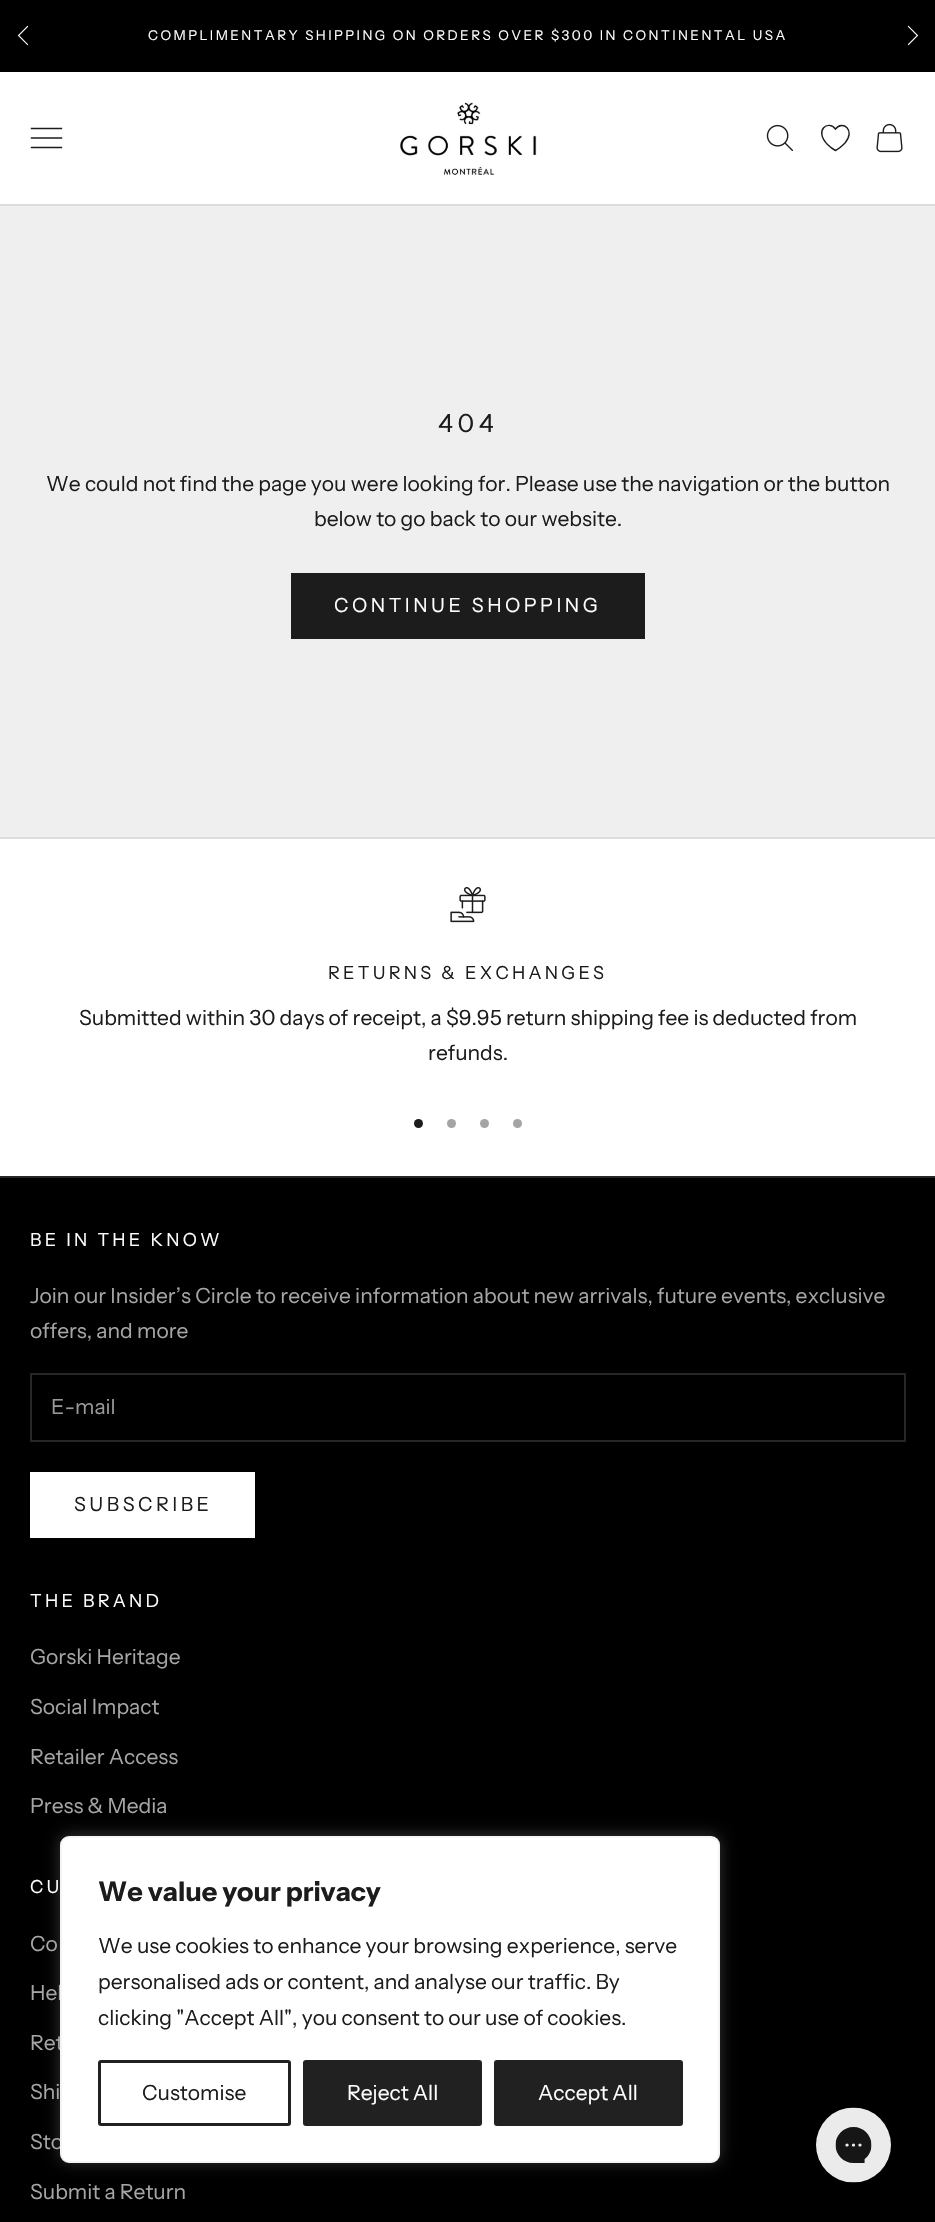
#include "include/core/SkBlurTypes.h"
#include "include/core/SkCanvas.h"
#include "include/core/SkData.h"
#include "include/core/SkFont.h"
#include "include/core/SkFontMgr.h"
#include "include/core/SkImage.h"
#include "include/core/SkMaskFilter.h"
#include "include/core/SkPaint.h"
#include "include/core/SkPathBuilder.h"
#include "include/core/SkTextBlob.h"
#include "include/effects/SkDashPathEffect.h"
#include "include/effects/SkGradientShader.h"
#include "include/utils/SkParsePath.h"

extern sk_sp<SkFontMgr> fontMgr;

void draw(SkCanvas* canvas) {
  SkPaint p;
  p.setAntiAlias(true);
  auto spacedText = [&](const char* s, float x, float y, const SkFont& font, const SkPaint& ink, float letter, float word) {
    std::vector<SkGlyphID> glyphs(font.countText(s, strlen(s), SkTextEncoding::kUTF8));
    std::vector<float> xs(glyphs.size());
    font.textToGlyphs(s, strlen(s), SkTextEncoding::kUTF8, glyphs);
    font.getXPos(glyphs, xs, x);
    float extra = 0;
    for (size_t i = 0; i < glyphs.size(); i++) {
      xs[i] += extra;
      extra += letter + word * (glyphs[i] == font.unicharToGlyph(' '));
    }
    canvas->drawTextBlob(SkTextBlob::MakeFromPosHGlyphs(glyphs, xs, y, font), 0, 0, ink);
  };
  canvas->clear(SkColorSetRGB(239, 239, 239));
  p.setColor(SK_ColorBLACK);
  canvas->drawRect(SkRect::MakeLTRB(0, 0, 935, 72), p);
  p.setStyle(SkPaint::kStroke_Style);
  p.setStrokeWidth(1.1f);
  p.setStrokeCap(SkPaint::kSquare_Cap);
  p.setColor(SK_ColorWHITE);
  canvas->drawPath(SkPathBuilder().moveTo(27.5f, 26.5f).lineTo(18.5f, 35.5f).lineTo(27.5f, 44.5f).detach(), p);
  canvas->drawPath(SkPathBuilder().moveTo(908.5f, 44.5f).lineTo(917.5f, 35.5f).lineTo(908.5f, 26.5f).detach(), p);
  p.setStyle(SkPaint::kFill_Style);
  canvas->drawRect(SkRect::MakeLTRB(0, 72, 935, 204), p);
  p.setColor(SkColorSetRGB(221, 221, 221));
  canvas->drawRect(SkRect::MakeLTRB(0, 204, 935, 206), p);
  p.setStyle(SkPaint::kStroke_Style);
  p.setStrokeWidth(1.4f);
  p.setColor(SkColorSetRGB(28, 28, 28));
  canvas->drawPath(SkPathBuilder().moveTo(31.5f, 147.5f).lineTo(61.5f, 147.5f).moveTo(31.5f, 138).lineTo(61.5f, 138).moveTo(31.5f, 128.5f).lineTo(61.5f, 128.5f).detach(), p);
  canvas->drawImageRect(SkImages::DeferredFromEncodedData(SkData::MakeFromFileName("images/1.png")), SkRect::MakeLTRB(400, 102, 537, 176), SkSamplingOptions());
  canvas->drawImageRect(SkImages::DeferredFromEncodedData(SkData::MakeFromFileName("images/2.png")), SkRect::MakeLTRB(766, 124, 793, 151), SkSamplingOptions());
  p.setStrokeCap(SkPaint::kRound_Cap);
  canvas->drawPath(SkPathBuilder().moveTo(835.5f, 150.5f).cubicTo(832.5f, 149, 830, 147, 827.5f, 144.5f).cubicTo(813.5f, 130, 828.5f, 119.5f, 835.5f, 129).cubicTo(842.5f, 120, 856, 130, 845, 143).cubicTo(842, 146, 839, 149, 835.5f, 150.5f).close().detach(), p);
  canvas->drawImageRect(SkImages::DeferredFromEncodedData(SkData::MakeFromFileName("images/3.png")), SkRect::MakeLTRB(876, 123, 903, 153), SkSamplingOptions());
  p.setStyle(SkPaint::kFill_Style);
  canvas->drawRect(SkRect::MakeLTRB(292, 574, 644, 638), p);
  p.setStyle(SkPaint::kStroke_Style);
  p.setStrokeWidth(2);
  p.setStrokeCap(SkPaint::kButt_Cap);
  canvas->drawRect(SkRect::MakeLTRB(292, 574, 644, 638), p);
  p.setStyle(SkPaint::kFill_Style);
  p.setColor(SK_ColorWHITE);
  canvas->drawRect(SkRect::MakeLTRB(0, 839, 935, 1176), p);
  p.setColor(SkColorSetRGB(221, 221, 221));
  canvas->drawRect(SkRect::MakeLTRB(0, 837, 935, 839), p);
  canvas->drawImageRect(SkImages::DeferredFromEncodedData(SkData::MakeFromFileName("images/4.png")), SkRect::MakeLTRB(450, 887, 486, 923), SkSamplingOptions());
  p.setColor(SkColorSetRGB(28, 28, 28));
  canvas->drawCircle(418.5f, 1123.5f, 4.5f, p);
  p.setColor(SkColorSetRGB(164, 164, 164));
  canvas->drawCircle(451.5f, 1123.5f, 4.5f, p);
  canvas->drawCircle(484.5f, 1123.5f, 4.5f, p);
  canvas->drawCircle(517.5f, 1123.5f, 4.5f, p);
  p.setColor(SK_ColorBLACK);
  canvas->drawRect(SkRect::MakeLTRB(0, 1178, 935, 2222), p);
  p.setColor(SkColorSetRGB(38, 38, 38));
  canvas->drawRect(SkRect::MakeLTRB(0, 1176, 935, 1178), p);
  p.setStyle(SkPaint::kStroke_Style);
  canvas->drawRect(SkRect::MakeLTRB(31, 1374, 905, 1441), p);
  p.setStyle(SkPaint::kFill_Style);
  p.setColor(SK_ColorWHITE);
  canvas->drawRect(SkRect::MakeLTRB(31, 1473, 254, 1537), p);
  p.setStyle(SkPaint::kStroke_Style);
  canvas->drawRect(SkRect::MakeLTRB(31, 1473, 254, 1537), p);
  p.setStyle(SkPaint::kFill_Style);
  p.setColor(SkColorSetARGB(77, 172, 171, 171));
  p.setMaskFilter(SkMaskFilter::MakeBlur(kNormal_SkBlurStyle, 7.5f));
  canvas->drawRoundRect(SkRect::MakeLTRB(60, 1835, 720, 2162), 9, 9, p);
  p.setMaskFilter(nullptr);
  canvas->drawImageRect(SkImages::DeferredFromEncodedData(SkData::MakeFromFileName("images/5.png")), SkRect::MakeLTRB(816, 2107, 891, 2183), SkSamplingOptions());
  SkFont font1(fontMgr->matchFamilyStyle("Instrument Sans", SkFontStyle::Normal()), 13.5f);
  font1.setSubpixel(true);
  p.setColor(SK_ColorWHITE);
  spacedText("COMPLIMENTARY SHIPPING ON ORDERS OVER $300 IN CONTINENTAL USA", 148, 40, font1, p, 2.43f, 0);
  SkFont font2(fontMgr->matchFamilyStyle("Instrument Sans", SkFontStyle::Normal()), 25);
  font2.setSubpixel(true);
  p.setColor(SkColorSetRGB(28, 28, 28));
  spacedText("404", 438, 432, font2, p, 4.5f, 0);
  SkFont font3(fontMgr->matchFamilyStyle("Instrument Sans", SkFontStyle::Normal()), 21);
  font3.setSubpixel(true);
  canvas->drawString("We could not find the page you were looking for. Please use the navigation or the button", 46, 491, font3, p);
  canvas->drawString("below to go back to our website.", 314, 526, font3, p);
  SkFont font4(fontMgr->matchFamilyStyle("Instrument Sans", SkFontStyle::Normal()), 19.5f);
  font4.setSubpixel(true);
  p.setColor(SK_ColorWHITE);
  spacedText("CONTINUE SHOPPING", 334, 612, font4, p, 3.5f, 0);
  SkFont font5(fontMgr->matchFamilyStyle("Instrument Sans", SkFontStyle::Normal()), 18);
  font5.setSubpixel(true);
  p.setColor(SkColorSetRGB(28, 28, 28));
  spacedText("RETURNS & EXCHANGES", 328, 979, font5, p, 3.25f, 0);
  canvas->drawString("Submitted within 30 days of receipt, a $9.95 return shipping fee is deducted from", 79, 1025, font3, p);
  canvas->drawString("refunds.", 428, 1060, font3, p);
  p.setColor(SK_ColorWHITE);
  spacedText("BE IN THE KNOW", 30, 1246, font5, p, 3.25f, 0);
  p.setColor(SkColorSetRGB(166, 166, 166));
  canvas->drawString("Join our Insider’s Circle to receive information about new arrivals, future events, exclusive", 30, 1303, font3, p);
  canvas->drawString("offers, and more", 30, 1338, font3, p);
  p.setColor(SkColorSetRGB(153, 153, 153));
  canvas->drawString("E-mail", 51, 1414, font3, p);
  p.setColor(SkColorSetRGB(28, 28, 28));
  spacedText("SUBSCRIBE", 74, 1511, font4, p, 3.5f, 0);
  p.setColor(SK_ColorWHITE);
  spacedText("THE BRAND", 30, 1607, font5, p, 3.25f, 0);
  p.setColor(SkColorSetRGB(166, 166, 166));
  canvas->drawString("Gorski Heritage", 30, 1664, font3, p);
  canvas->drawString("Social Impact", 30, 1714, font3, p);
  canvas->drawString("Retailer Access", 30, 1764, font3, p);
  canvas->drawString("Press & Media", 30, 1813, font3, p);
  p.setColor(SK_ColorWHITE);
  spacedText("CU", 30, 1893, font5, p, 3.25f, 0);
  p.setColor(SkColorSetRGB(166, 166, 166));
  canvas->drawString("Co", 30, 1951, font3, p);
  canvas->drawString("Hel", 30, 2000, font3, p);
  canvas->drawString("Ret", 30, 2050, font3, p);
  canvas->drawString("Shi", 30, 2099, font3, p);
  canvas->drawString("Sto", 30, 2149, font3, p);
  canvas->drawString("Submit a Return", 30, 2199, font3, p);
  p.setColor(SK_ColorWHITE);
  canvas->drawRoundRect(SkRect::MakeLTRB(61, 1837, 719, 2162), 8, 8, p);
  p.setStyle(SkPaint::kStroke_Style);
  p.setColor(SkColorSetRGB(244, 244, 244));
  canvas->drawRoundRect(SkRect::MakeLTRB(61, 1837, 719, 2162), 8, 8, p);
  SkFont font6(fontMgr->matchFamilyStyle("Instrument Sans", SkFontStyle::Bold()), 27);
  font6.setSubpixel(true);
  p.setStyle(SkPaint::kFill_Style);
  p.setColor(SkColorSetRGB(28, 28, 28));
  canvas->drawString("We value your privacy", 98, 1901, font6, p);
  canvas->drawString("We use cookies to enhance your browsing experience, serve", 98, 1953, font3, p);
  canvas->drawString("personalised ads or content, and analyse our traffic. By", 98, 1989, font3, p);
  canvas->drawString("clicking \"Accept All\", you consent to our use of cookies.", 98, 2025, font3, p);
  p.setStyle(SkPaint::kStroke_Style);
  p.setStrokeWidth(3);
  p.setColor(SkColorSetRGB(33, 33, 33));
  canvas->drawRoundRect(SkRect::MakeLTRB(99.5f, 2061.5f, 289.5f, 2124.5f), 1.5f, 1.5f, p);
  p.setStyle(SkPaint::kFill_Style);
  p.setColor(SkColorSetRGB(28, 28, 28));
  canvas->drawString("Customise", 142, 2100, font3, p);
  p.setColor(SkColorSetRGB(33, 33, 33));
  canvas->drawRoundRect(SkRect::MakeLTRB(304.5f, 2061.5f, 480.5f, 2124.5f), 1.5f, 1.5f, p);
  p.setStyle(SkPaint::kStroke_Style);
  canvas->drawRoundRect(SkRect::MakeLTRB(304.5f, 2061.5f, 480.5f, 2124.5f), 1.5f, 1.5f, p);
  p.setStyle(SkPaint::kFill_Style);
  p.setColor(SK_ColorWHITE);
  canvas->drawString("Reject All", 347, 2100, font3, p);
  p.setColor(SkColorSetRGB(33, 33, 33));
  canvas->drawRoundRect(SkRect::MakeLTRB(495.5f, 2061.5f, 681.5f, 2124.5f), 1.5f, 1.5f, p);
  p.setStyle(SkPaint::kStroke_Style);
  canvas->drawRoundRect(SkRect::MakeLTRB(495.5f, 2061.5f, 681.5f, 2124.5f), 1.5f, 1.5f, p);
  p.setStyle(SkPaint::kFill_Style);
  p.setColor(SK_ColorWHITE);
  canvas->drawString("Accept All", 538, 2100, font3, p);
}
